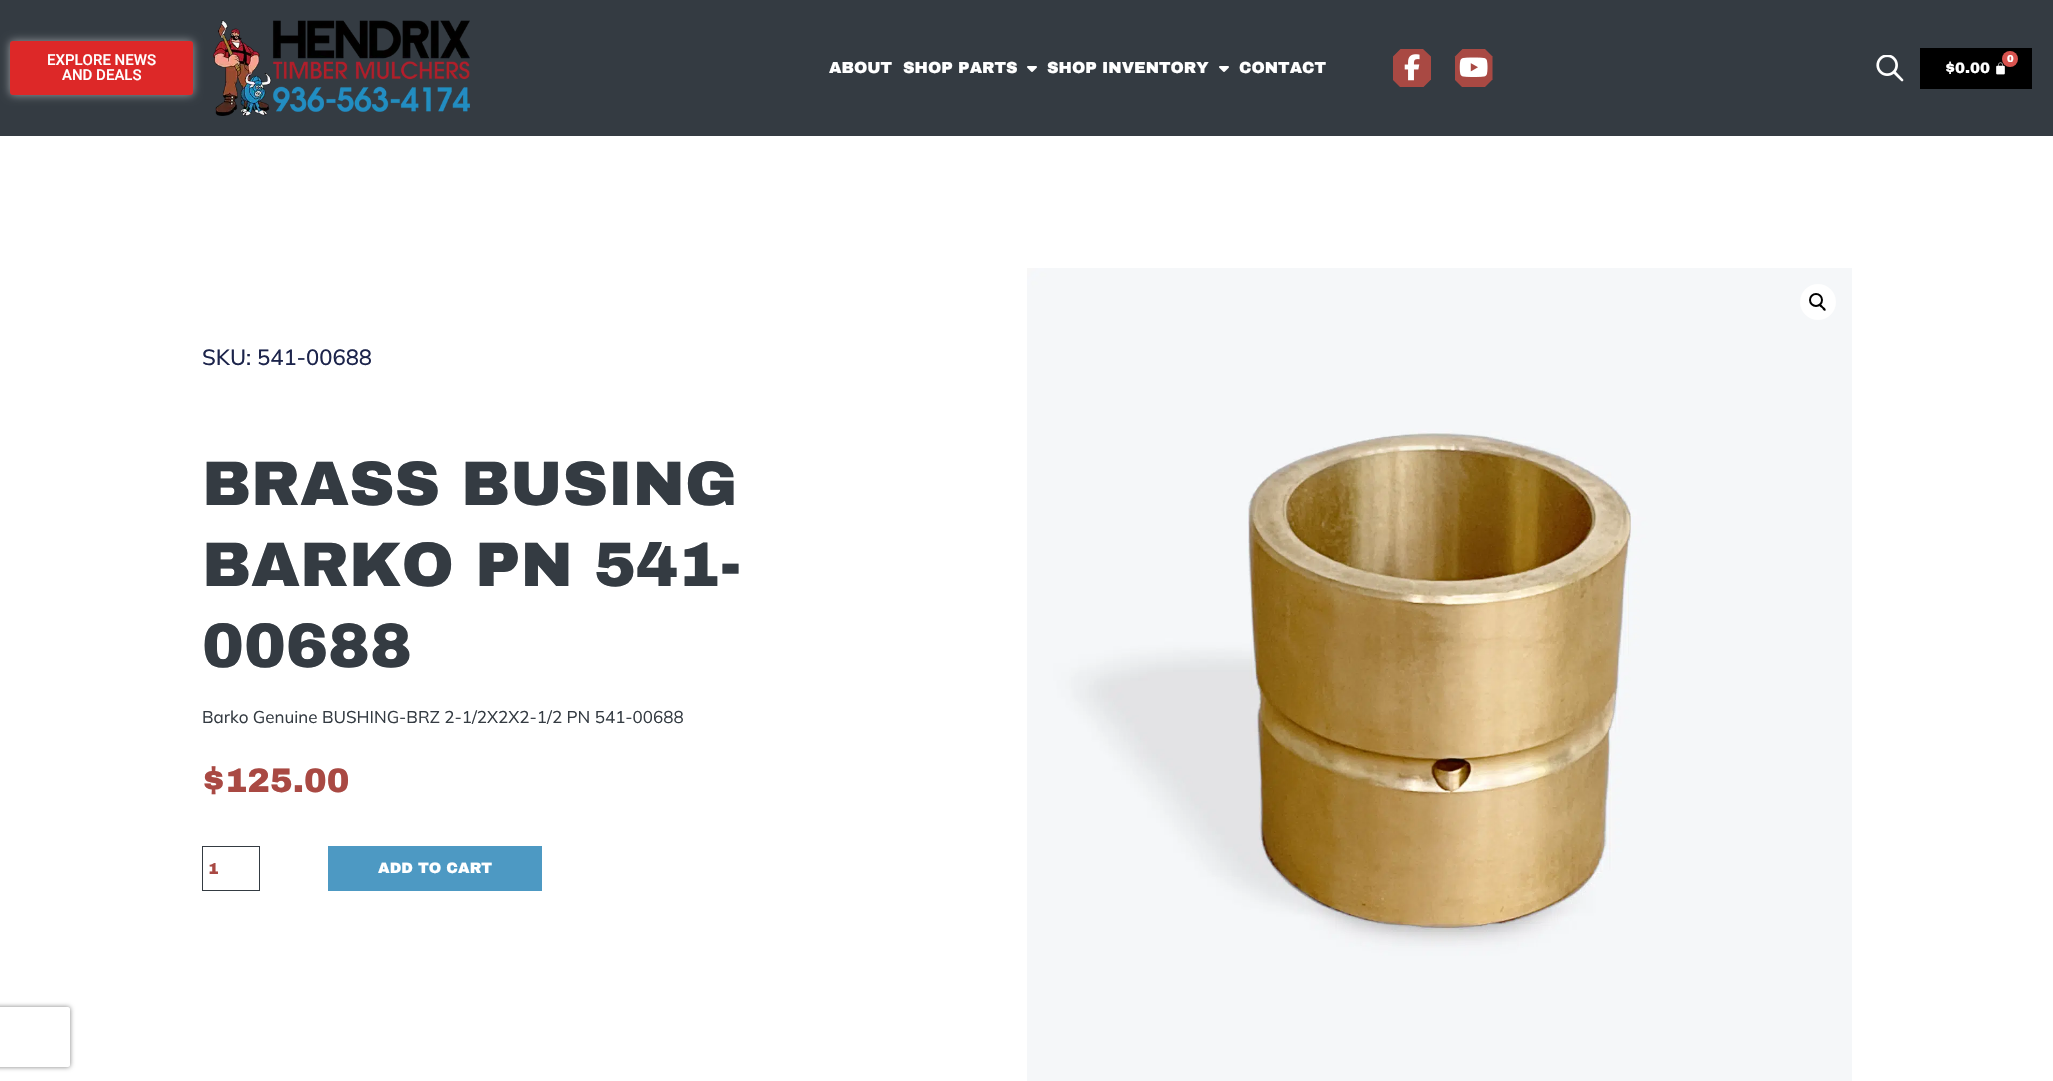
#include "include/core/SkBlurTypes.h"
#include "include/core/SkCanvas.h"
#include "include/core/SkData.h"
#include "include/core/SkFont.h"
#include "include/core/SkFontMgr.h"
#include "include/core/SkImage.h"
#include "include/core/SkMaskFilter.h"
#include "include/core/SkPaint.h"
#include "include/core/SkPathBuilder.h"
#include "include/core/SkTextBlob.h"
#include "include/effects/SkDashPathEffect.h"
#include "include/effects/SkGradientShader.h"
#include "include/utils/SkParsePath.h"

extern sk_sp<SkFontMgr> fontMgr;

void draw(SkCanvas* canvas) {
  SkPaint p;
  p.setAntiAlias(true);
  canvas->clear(SK_ColorWHITE);
  p.setColor(SkColorSetRGB(52, 59, 66));
  canvas->drawRect(SkRect::MakeLTRB(0, 0, 2053, 136), p);
  p.setColor(SkColorSetARGB(128, 255, 255, 255));
  p.setMaskFilter(SkMaskFilter::MakeBlur(kNormal_SkBlurStyle, 5));
  canvas->drawRoundRect(SkRect::MakeLTRB(10, 41, 193, 95), 3, 3, p);
  p.setMaskFilter(nullptr);
  p.setColor(SkColorSetRGB(221, 40, 40));
  canvas->drawRoundRect(SkRect::MakeLTRB(10, 41, 193, 95), 3, 3, p);
  canvas->drawImageRect(SkImages::DeferredFromEncodedData(SkData::MakeFromFileName("images/1.png")), SkRect::MakeLTRB(213, 20, 470, 116), SkSamplingOptions());
  canvas->drawImageRect(SkImages::DeferredFromEncodedData(SkData::MakeFromFileName("images/2.png")), SkRect::MakeLTRB(1027, 66, 1037, 72), SkSamplingOptions());
  canvas->drawImageRect(SkImages::DeferredFromEncodedData(SkData::MakeFromFileName("images/2.png")), SkRect::MakeLTRB(1219, 66, 1229, 72), SkSamplingOptions());
  p.setColor(SkColorSetRGB(169, 73, 67));
  canvas->drawPath(SkPathBuilder().moveTo(1400.5f, 49).lineTo(1423, 49).lineTo(1431, 56.5f).lineTo(1431, 79.5f).lineTo(1423.5f, 87).lineTo(1400, 87).lineTo(1393, 80).lineTo(1393, 56.5f).close().detach(), p);
  canvas->drawImageRect(SkImages::DeferredFromEncodedData(SkData::MakeFromFileName("images/3.png")), SkRect::MakeLTRB(1404, 54, 1420, 81), SkSamplingOptions());
  canvas->drawPath(SkPathBuilder().moveTo(1462.5f, 49).lineTo(1485, 49).lineTo(1492.5f, 56.5f).lineTo(1492.5f, 79.5f).lineTo(1485, 87).lineTo(1462, 87).lineTo(1455, 80).lineTo(1455, 56.5f).close().detach(), p);
  canvas->drawImageRect(SkImages::DeferredFromEncodedData(SkData::MakeFromFileName("images/4.png")), SkRect::MakeLTRB(1459, 57, 1488, 77), SkSamplingOptions());
  canvas->drawImageRect(SkImages::DeferredFromEncodedData(SkData::MakeFromFileName("images/5.png")), SkRect::MakeLTRB(1876, 55, 1904, 82), SkSamplingOptions());
  p.setColor(SK_ColorBLACK);
  canvas->drawRect(SkRect::MakeLTRB(1920, 48, 2032, 89), p);
  canvas->drawImageRect(SkImages::DeferredFromEncodedData(SkData::MakeFromFileName("images/6.png")), SkRect::MakeLTRB(1996, 62, 2005, 75), SkSamplingOptions());
  p.setColor(SkColorSetRGB(217, 83, 79));
  canvas->drawCircle(2010, 59, 8, p);
  p.setStyle(SkPaint::kStroke_Style);
  p.setStrokeWidth(1);
  p.setColor(SkColorSetRGB(52, 59, 66));
  canvas->drawRect(SkRect::MakeLTRB(202.5f, 846.5f, 259.5f, 890.5f), p);
  p.setStyle(SkPaint::kFill_Style);
  p.setColor(SkColorSetRGB(77, 153, 195));
  canvas->drawRect(SkRect::MakeLTRB(328, 846, 542, 891), p);
  canvas->drawImageRect(SkImages::DeferredFromEncodedData(SkData::MakeFromFileName("images/7.png")), SkRect::MakeLTRB(1027, 268, 1852, 1081), SkSamplingOptions());
  p.setColor(SK_ColorWHITE);
  canvas->drawCircle(1818, 302, 18, p);
  p.setStyle(SkPaint::kStroke_Style);
  p.setStrokeWidth(2);
  p.setColor(SK_ColorBLACK);
  canvas->drawCircle(1816, 300, 6, p);
  p.setStyle(SkPaint::kFill_Style);
  canvas->drawPath(SkPathBuilder().moveTo(1819.5f, 304.5f).cubicTo(1821, 303.5f, 1822.5f, 306, 1823, 306.5f).cubicTo(1824, 307.5f, 1826.5f, 309, 1825.5f, 310.5f).cubicTo(1824, 311.5f, 1822.5f, 309, 1822, 308).cubicTo(1821, 307.5f, 1818.5f, 306, 1819.5f, 304.5f).close().detach(), p);
  canvas->save();
  canvas->clipPath(SkPathBuilder(SkPathFillType::kEvenOdd).moveTo(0, 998).lineTo(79, 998).lineTo(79, 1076).lineTo(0, 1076).close().moveTo(-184, 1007).lineTo(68, 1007).cubicTo(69, 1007, 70, 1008, 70, 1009).lineTo(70, 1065).cubicTo(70, 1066, 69, 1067, 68, 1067).lineTo(-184, 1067).cubicTo(-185, 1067, -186, 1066, -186, 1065).lineTo(-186, 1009).cubicTo(-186, 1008, -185, 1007, -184, 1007).close().detach(), true);
  p.setColor(SkColorSetRGB(128, 128, 128));
  p.setMaskFilter(SkMaskFilter::MakeBlur(kNormal_SkBlurStyle, 2.5f));
  canvas->drawRoundRect(SkRect::MakeLTRB(-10, 1007, 70, 1067), 2, 2, p);
  p.setMaskFilter(nullptr);
  canvas->restore();
  SkFont font1(fontMgr->matchFamilyStyle("Roboto", SkFontStyle(500, SkFontStyle::kNormal_Width, SkFontStyle::kUpright_Slant)), 15);
  font1.setSubpixel(true);
  p.setColor(SK_ColorWHITE);
  canvas->drawString("EXPLORE NEWS", 47, 65, font1, p);
  canvas->drawString("AND DEALS", 62, 80, font1, p);
  SkFont font2(fontMgr->matchFamilyStyle("Archivo Black", SkFontStyle(900, SkFontStyle::kNormal_Width, SkFontStyle::kUpright_Slant)), 16);
  font2.setSubpixel(true);
  canvas->drawString("ABOUT", 829, 73, font2, p);
  canvas->drawString("SHOP PARTS", 903, 73, font2, p);
  canvas->drawString("SHOP INVENTORY", 1047, 73, font2, p);
  canvas->drawString("CONTACT", 1239, 73, font2, p);
  SkFont font3(fontMgr->matchFamilyStyle("Archivo Black", SkFontStyle(900, SkFontStyle::kNormal_Width, SkFontStyle::kUpright_Slant)), 10);
  font3.setSubpixel(true);
  canvas->drawString("0", 2007, 62, font3, p);
  SkFont font4(fontMgr->matchFamilyStyle("Archivo Black", SkFontStyle(900, SkFontStyle::kNormal_Width, SkFontStyle::kUpright_Slant)), 15);
  font4.setSubpixel(true);
  canvas->drawString("$0.00", 1945, 73, font4, p);
  SkFont font5(fontMgr->matchFamilyStyle("Mulish", SkFontStyle(500, SkFontStyle::kNormal_Width, SkFontStyle::kUpright_Slant)), 22);
  font5.setSubpixel(true);
  p.setColor(SkColorSetRGB(28, 36, 75));
  canvas->drawString("SKU: 541-00688", 202, 365, font5, p);
  SkFont font6(fontMgr->matchFamilyStyle("Archivo Black", SkFontStyle(900, SkFontStyle::kNormal_Width, SkFontStyle::kUpright_Slant)), 63);
  font6.setSubpixel(true);
  p.setColor(SkColorSetRGB(52, 59, 66));
  canvas->drawString("BRASS BUSING", 202, 505, font6, p);
  canvas->drawString("BARKO PN 541-", 202, 586, font6, p);
  canvas->drawString("00688", 202, 667, font6, p);
  SkFont font7(fontMgr->matchFamilyStyle("Mulish", SkFontStyle::Normal()), 17);
  font7.setSubpixel(true);
  canvas->drawString("Barko Genuine BUSHING-BRZ 2-1/2X2X2-1/2 PN 541-00688", 202, 723, font7, p);
  SkFont font8(fontMgr->matchFamilyStyle("Archivo Black", SkFontStyle(900, SkFontStyle::kNormal_Width, SkFontStyle::kUpright_Slant)), 34);
  font8.setSubpixel(true);
  p.setColor(SkColorSetRGB(169, 73, 67));
  canvas->drawString("$125.00", 202, 792, font8, p);
  canvas->drawString("1", 208, 874, font2, p);
  p.setColor(SK_ColorWHITE);
  canvas->drawString("ADD TO CART", 378, 873, font4, p);
}
